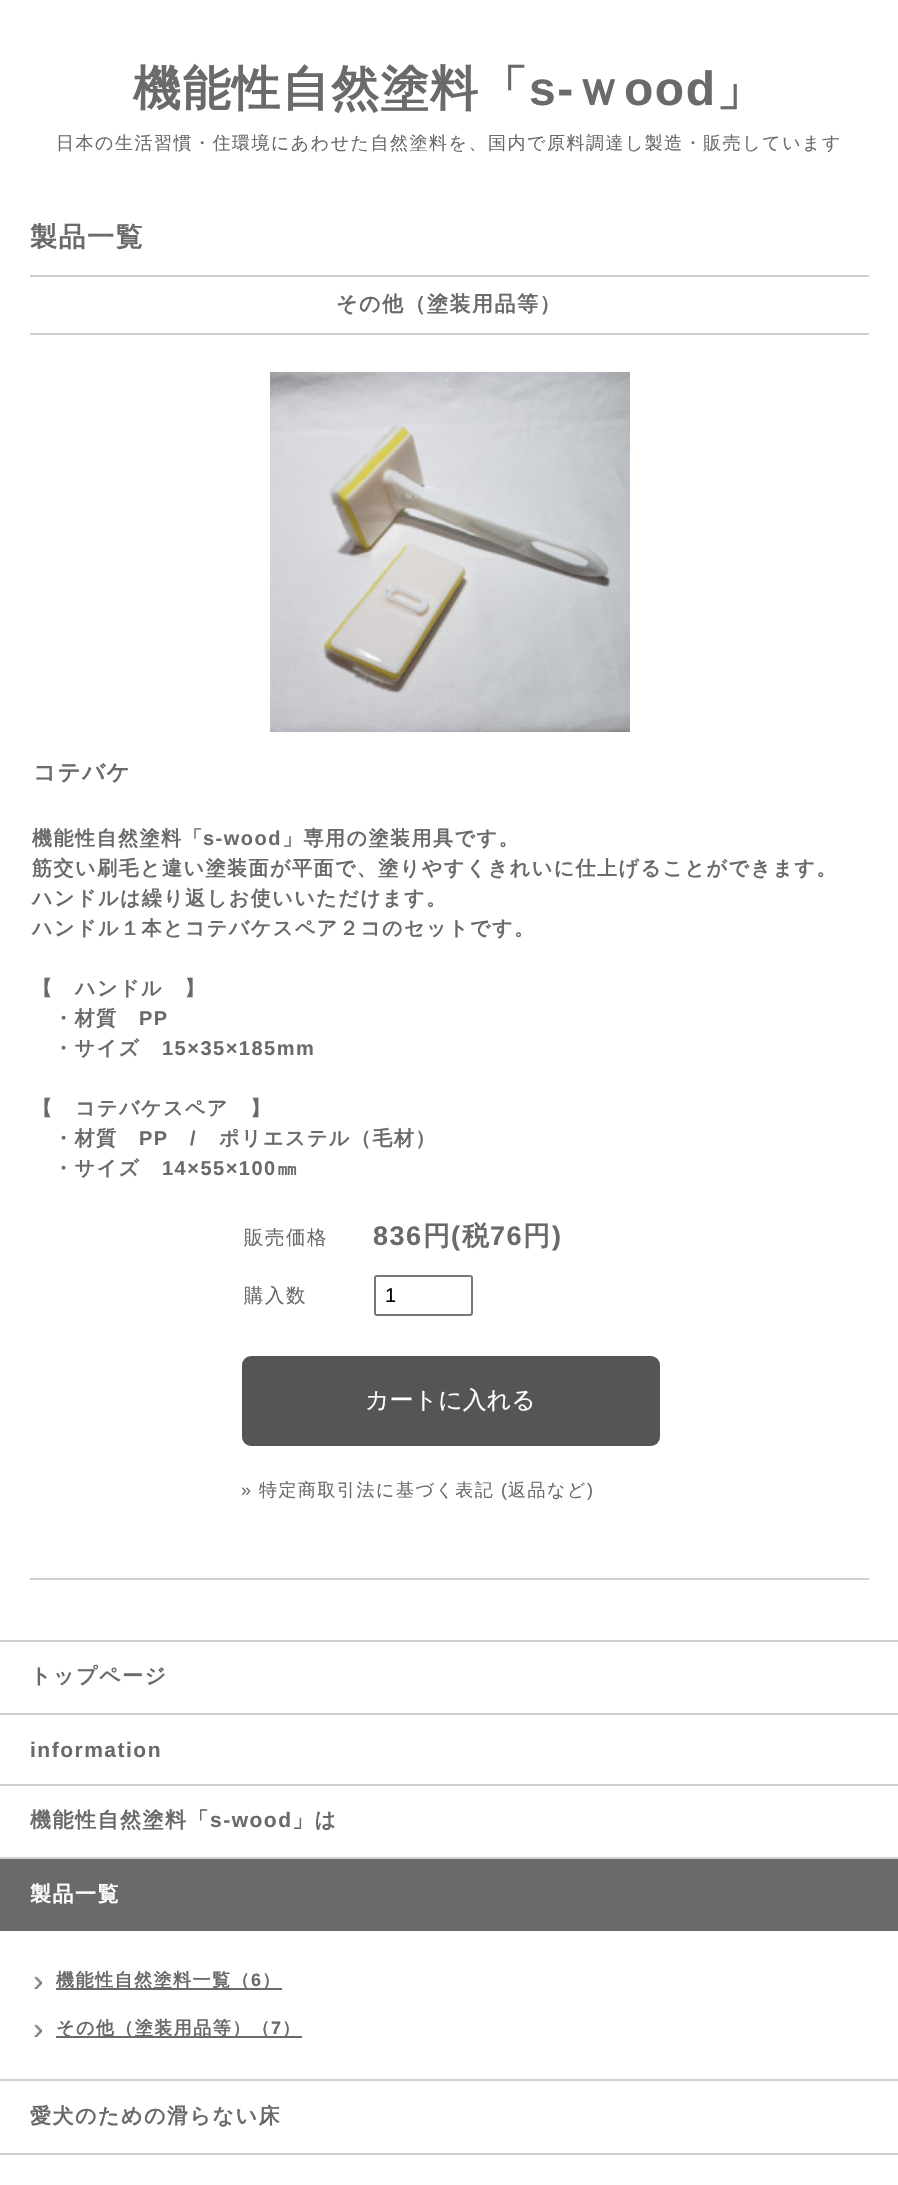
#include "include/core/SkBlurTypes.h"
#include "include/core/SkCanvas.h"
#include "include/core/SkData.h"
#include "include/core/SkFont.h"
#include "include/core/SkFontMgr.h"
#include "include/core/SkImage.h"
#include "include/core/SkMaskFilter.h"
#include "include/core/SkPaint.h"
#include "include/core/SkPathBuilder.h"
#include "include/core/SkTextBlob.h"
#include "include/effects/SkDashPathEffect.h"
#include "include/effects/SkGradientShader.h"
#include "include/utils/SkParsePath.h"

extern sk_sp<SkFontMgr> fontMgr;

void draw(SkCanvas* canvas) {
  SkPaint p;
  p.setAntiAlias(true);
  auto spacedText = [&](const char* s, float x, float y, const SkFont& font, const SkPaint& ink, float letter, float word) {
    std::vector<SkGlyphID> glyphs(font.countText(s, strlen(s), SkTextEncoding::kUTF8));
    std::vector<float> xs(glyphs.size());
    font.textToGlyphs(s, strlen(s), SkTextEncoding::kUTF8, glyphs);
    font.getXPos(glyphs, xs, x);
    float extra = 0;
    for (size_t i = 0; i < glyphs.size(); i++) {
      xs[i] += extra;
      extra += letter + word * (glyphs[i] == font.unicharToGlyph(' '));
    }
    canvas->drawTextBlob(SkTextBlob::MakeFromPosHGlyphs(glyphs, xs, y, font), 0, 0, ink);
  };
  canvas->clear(SK_ColorWHITE);
  p.setColor(SkColorSetRGB(208, 208, 208));
  canvas->drawRect(SkRect::MakeLTRB(30, 1578, 869, 1580), p);
  canvas->drawRect(SkRect::MakeLTRB(30, 275, 869, 277), p);
  canvas->drawRect(SkRect::MakeLTRB(30, 333, 869, 335), p);
  canvas->drawImageRect(SkImages::DeferredFromEncodedData(SkData::MakeFromFileName("images/1.png")), SkRect::MakeLTRB(270, 372, 630, 732), SkSamplingOptions());
  p.setStyle(SkPaint::kStroke_Style);
  p.setStrokeWidth(2);
  p.setColor(SkColorSetRGB(118, 118, 118));
  canvas->drawRoundRect(SkRect::MakeLTRB(375, 1276, 472, 1315), 2, 2, p);
  p.setStyle(SkPaint::kFill_Style);
  p.setColor(SkColorSetRGB(85, 85, 85));
  canvas->drawRoundRect(SkRect::MakeLTRB(242, 1356, 660, 1446), 9, 9, p);
  p.setColor(SkColorSetRGB(208, 208, 208));
  canvas->drawRect(SkRect::MakeLTRB(0, 1640, 898, 1642), p);
  canvas->drawRect(SkRect::MakeLTRB(0, 1713, 898, 1715), p);
  canvas->drawRect(SkRect::MakeLTRB(0, 1784, 898, 1786), p);
  canvas->drawRect(SkRect::MakeLTRB(0, 1857, 898, 1859), p);
  canvas->drawRect(SkRect::MakeLTRB(0, 2079, 898, 2081), p);
  p.setColor(SkColorSetRGB(106, 106, 106));
  canvas->drawRect(SkRect::MakeLTRB(0, 1859, 898, 1931), p);
  canvas->drawImageRect(SkImages::DeferredFromEncodedData(SkData::MakeFromFileName("images/2.png")), SkRect::MakeLTRB(34, 1976, 42, 1989), SkSamplingOptions());
  canvas->drawRect(SkRect::MakeLTRB(56, 1988, 282, 1990), p);
  canvas->drawImageRect(SkImages::DeferredFromEncodedData(SkData::MakeFromFileName("images/2.png")), SkRect::MakeLTRB(34, 2024, 42, 2037), SkSamplingOptions());
  canvas->drawRect(SkRect::MakeLTRB(56, 2036, 302, 2038), p);
  p.setColor(SkColorSetRGB(208, 208, 208));
  canvas->drawRect(SkRect::MakeLTRB(0, 2153, 898, 2155), p);
  SkFont font1(fontMgr->matchFamilyStyle("WenQuanYi Zen Hei", SkFontStyle::Bold()), 48);
  font1.setSubpixel(true);
  p.setColor(SkColorSetRGB(106, 106, 106));
  spacedText("機能性自然塗料「", 133, 105, font1, p, 1.5f, 0);
  SkFont font2(fontMgr->matchFamilyStyle("Liberation Sans", SkFontStyle::Bold()), 48);
  font2.setSubpixel(true);
  spacedText("s-", 529, 105, font2, p, 1.5f, 0);
  spacedText("ｗ", 574, 105, font1, p, 1.5f, 0);
  spacedText("ood", 624, 105, font2, p, 1.5f, 0);
  spacedText("」", 716, 105, font1, p, 1.5f, 0);
  SkFont font3(fontMgr->matchFamilyStyle("WenQuanYi Zen Hei", SkFontStyle(500, SkFontStyle::kNormal_Width, SkFontStyle::kUpright_Slant)), 18);
  font3.setSubpixel(true);
  spacedText("日本の生活習慣・住環境にあわせた自然塗料を、国内で原料調達し製造・販売しています", 56, 149, font3, p, 1.5f, 0);
  SkFont font4(fontMgr->matchFamilyStyle("WenQuanYi Zen Hei", SkFontStyle::Bold()), 27);
  font4.setSubpixel(true);
  spacedText("製品一覧", 30, 246, font4, p, 1.5f, 0);
  SkFont font5(fontMgr->matchFamilyStyle("WenQuanYi Zen Hei", SkFontStyle::Bold()), 21);
  font5.setSubpixel(true);
  spacedText("その他（塗装用品等）", 336, 311, font5, p, 1.5f, 0);
  SkFont font6(fontMgr->matchFamilyStyle("WenQuanYi Zen Hei", SkFontStyle::Bold()), 22.5f);
  font6.setSubpixel(true);
  spacedText("コテバケ", 33, 780, font6, p, 1.5f, 0);
  SkFont font7(fontMgr->matchFamilyStyle("WenQuanYi Zen Hei", SkFontStyle::Bold()), 20);
  font7.setSubpixel(true);
  spacedText("機能性自然塗料「", 32, 845, font7, p, 1.5f, 0);
  SkFont font8(fontMgr->matchFamilyStyle("Liberation Sans", SkFontStyle::Bold()), 20);
  font8.setSubpixel(true);
  spacedText("s-wood", 203, 845, font8, p, 1.5f, 0);
  spacedText("」専用の塗装用具です。", 282, 845, font7, p, 1.5f, 0);
  spacedText("筋交い刷毛と違い塗装面が平面で、塗りやすくきれいに仕上げることができます。", 32, 875, font7, p, 1.5f, 0);
  spacedText("ハンドルは繰り返しお使いいただけます。", 32, 905, font7, p, 1.5f, 0);
  spacedText("ハンドル１本とコテバケスペア２コのセットです。", 32, 935, font7, p, 1.5f, 0);
  spacedText("【　ハンドル　】", 32, 995, font7, p, 1.5f, 0);
  spacedText("・材質", 53, 1025, font7, p, 1.5f, 0);
  spacedText("PP", 139, 1025, font8, p, 1.5f, 0);
  spacedText("・サイズ", 53, 1055, font7, p, 1.5f, 0);
  spacedText("15×35×185mm", 162, 1055, font8, p, 1.5f, 0);
  spacedText("【　コテバケスペア　】", 32, 1115, font7, p, 1.5f, 0);
  spacedText("・材質", 53, 1145, font7, p, 1.5f, 0);
  spacedText("PP", 139, 1145, font8, p, 1.5f, 0);
  spacedText("/", 190, 1145, font8, p, 1.5f, 0);
  spacedText("ポリエステル（毛材）", 219, 1145, font7, p, 1.5f, 0);
  spacedText("・サイズ", 53, 1175, font7, p, 1.5f, 0);
  spacedText("14×55×100", 162, 1175, font8, p, 1.5f, 0);
  spacedText("㎜", 277, 1175, font7, p, 1.5f, 0);
  SkFont font9(fontMgr->matchFamilyStyle("WenQuanYi Zen Hei", SkFontStyle(500, SkFontStyle::kNormal_Width, SkFontStyle::kUpright_Slant)), 19.5f);
  font9.setSubpixel(true);
  spacedText("販売価格", 244, 1244, font9, p, 1.5f, 0);
  SkFont font10(fontMgr->matchFamilyStyle("Liberation Sans", SkFontStyle::Bold()), 27);
  font10.setSubpixel(true);
  spacedText("836", 373, 1245, font10, p, 1.5f, 0);
  spacedText("円", 423, 1245, font4, p, 1.5f, 0);
  spacedText("(", 451, 1245, font10, p, 1.5f, 0);
  spacedText("税", 462, 1245, font4, p, 1.5f, 0);
  spacedText("76", 490, 1245, font10, p, 1.5f, 0);
  spacedText("円", 523, 1245, font4, p, 1.5f, 0);
  spacedText(")", 552, 1245, font10, p, 1.5f, 0);
  spacedText("購入数", 244, 1302, font9, p, 1.5f, 0);
  SkFont font11(fontMgr->matchFamilyStyle("Liberation Sans", SkFontStyle::Normal()), 20);
  font11.setSubpixel(true);
  p.setColor(SK_ColorBLACK);
  canvas->drawString("1", 385, 1302, font11, p);
  SkFont font12(fontMgr->matchFamilyStyle("WenQuanYi Zen Hei", SkFontStyle(500, SkFontStyle::kNormal_Width, SkFontStyle::kUpright_Slant)), 24);
  font12.setSubpixel(true);
  p.setColor(SK_ColorWHITE);
  canvas->drawString("カートに入れる", 365, 1408, font12, p);
  SkFont font13(fontMgr->matchFamilyStyle("Liberation Sans", SkFontStyle::Normal()), 18);
  font13.setSubpixel(true);
  p.setColor(SkColorSetRGB(106, 106, 106));
  spacedText("»", 241, 1496, font13, p, 1.5f, 0);
  spacedText("特定商取引法に基づく表記", 259, 1496, font3, p, 1.5f, 0);
  spacedText("(", 501, 1496, font13, p, 1.5f, 0);
  spacedText("返品など", 508, 1496, font3, p, 1.5f, 0);
  spacedText(")", 587, 1496, font13, p, 1.5f, 0);
  spacedText("トップページ", 30, 1683, font5, p, 1.5f, 0);
  SkFont font14(fontMgr->matchFamilyStyle("Liberation Sans", SkFontStyle::Bold()), 21);
  font14.setSubpixel(true);
  spacedText("information", 30, 1757, font14, p, 1.5f, 0);
  spacedText("機能性自然塗料「", 30, 1827, font5, p, 1.5f, 0);
  spacedText("s-wood", 210, 1827, font14, p, 1.5f, 0);
  spacedText("」は", 292, 1827, font5, p, 1.5f, 0);
  p.setColor(SK_ColorWHITE);
  spacedText("製品一覧", 30, 1901, font5, p, 1.5f, 0);
  SkFont font15(fontMgr->matchFamilyStyle("WenQuanYi Zen Hei", SkFontStyle::Bold()), 18);
  font15.setSubpixel(true);
  p.setColor(SkColorSetRGB(106, 106, 106));
  spacedText("機能性自然塗料一覧（", 56, 1986, font15, p, 1.5f, 0);
  SkFont font16(fontMgr->matchFamilyStyle("Liberation Sans", SkFontStyle::Bold()), 18);
  font16.setSubpixel(true);
  spacedText("6", 251, 1986, font16, p, 1.5f, 0);
  spacedText("）", 262, 1986, font15, p, 1.5f, 0);
  spacedText("その他（塗装用品等）（", 56, 2034, font15, p, 1.5f, 0);
  spacedText("7", 271, 2034, font16, p, 1.5f, 0);
  spacedText("）", 282, 2034, font15, p, 1.5f, 0);
  spacedText("愛犬のための滑らない床", 30, 2123, font5, p, 1.5f, 0);
}
